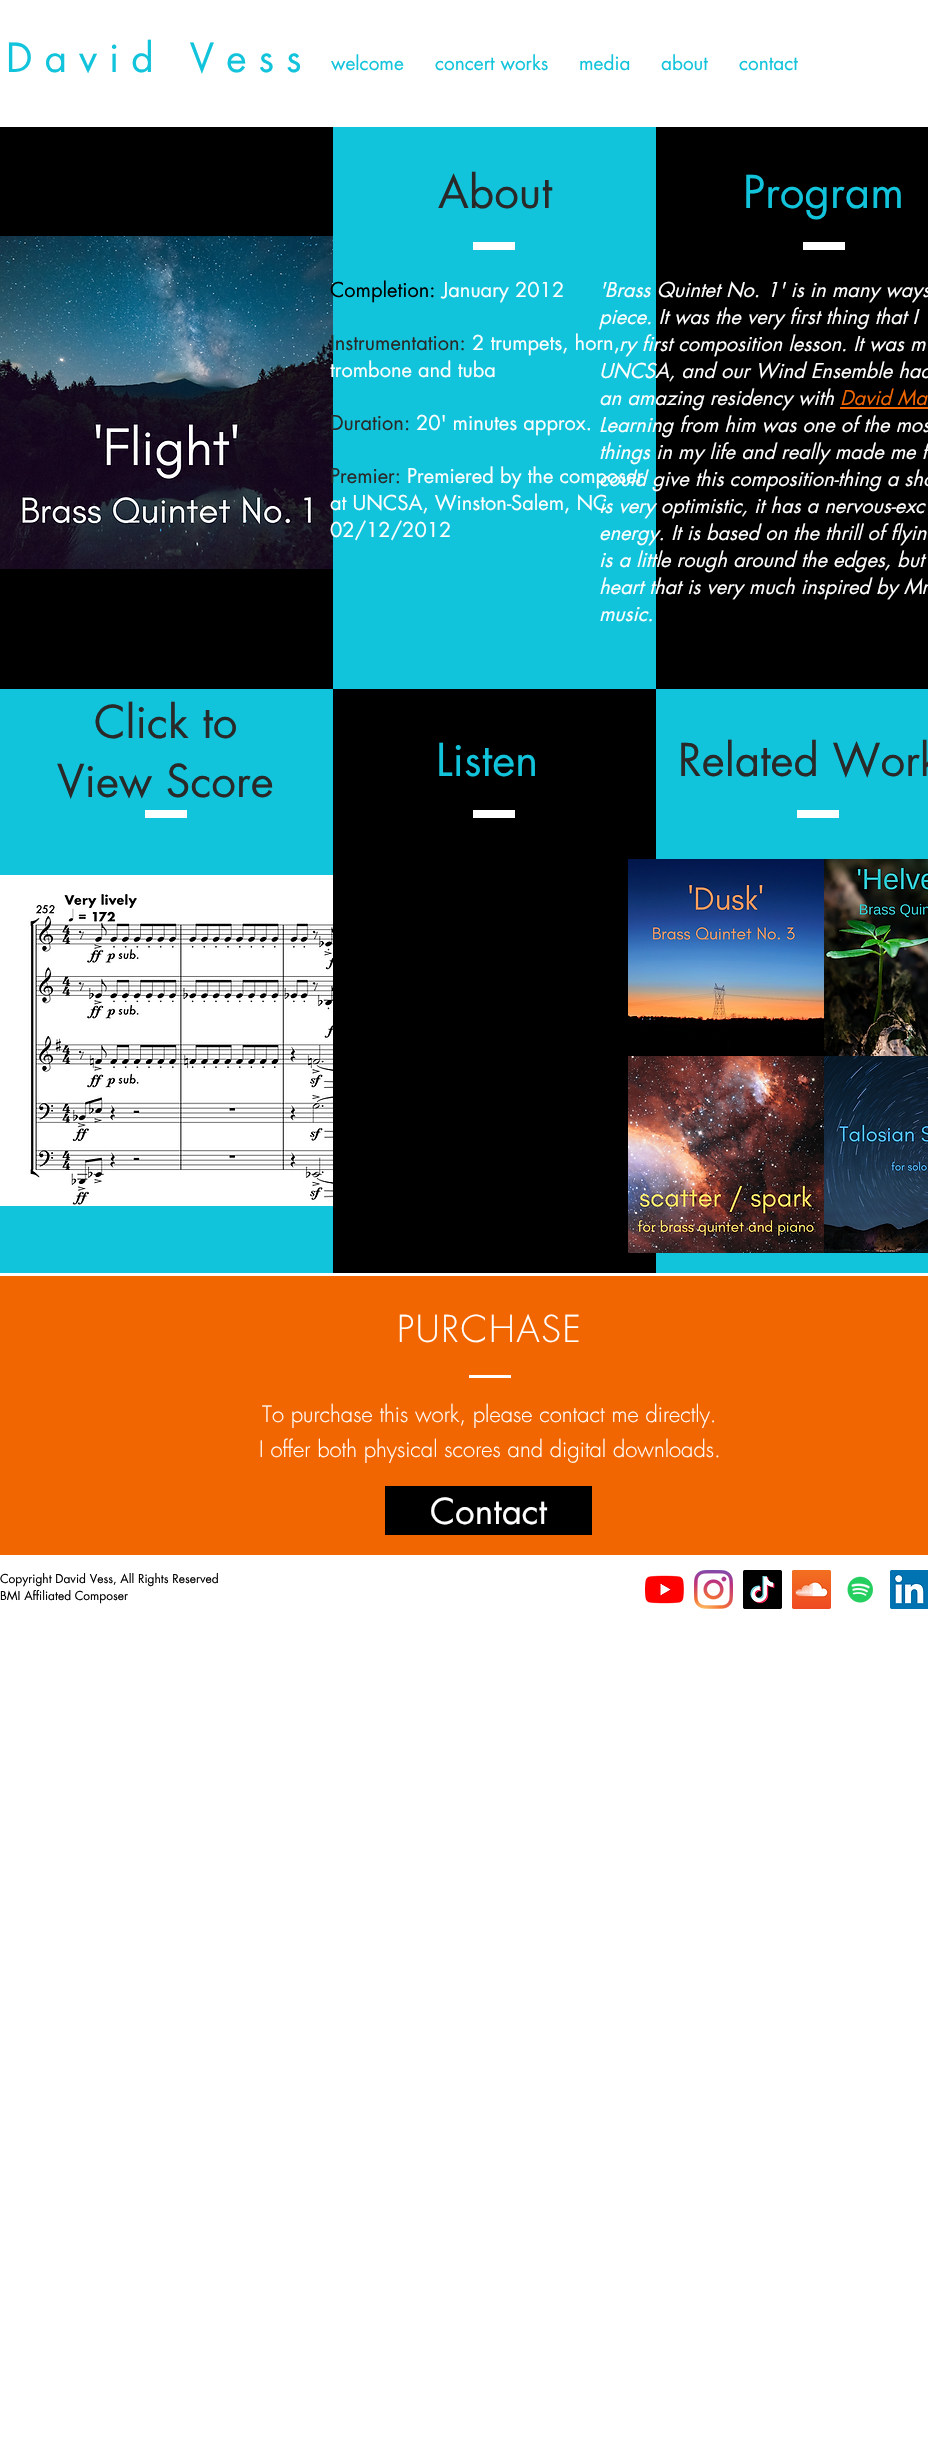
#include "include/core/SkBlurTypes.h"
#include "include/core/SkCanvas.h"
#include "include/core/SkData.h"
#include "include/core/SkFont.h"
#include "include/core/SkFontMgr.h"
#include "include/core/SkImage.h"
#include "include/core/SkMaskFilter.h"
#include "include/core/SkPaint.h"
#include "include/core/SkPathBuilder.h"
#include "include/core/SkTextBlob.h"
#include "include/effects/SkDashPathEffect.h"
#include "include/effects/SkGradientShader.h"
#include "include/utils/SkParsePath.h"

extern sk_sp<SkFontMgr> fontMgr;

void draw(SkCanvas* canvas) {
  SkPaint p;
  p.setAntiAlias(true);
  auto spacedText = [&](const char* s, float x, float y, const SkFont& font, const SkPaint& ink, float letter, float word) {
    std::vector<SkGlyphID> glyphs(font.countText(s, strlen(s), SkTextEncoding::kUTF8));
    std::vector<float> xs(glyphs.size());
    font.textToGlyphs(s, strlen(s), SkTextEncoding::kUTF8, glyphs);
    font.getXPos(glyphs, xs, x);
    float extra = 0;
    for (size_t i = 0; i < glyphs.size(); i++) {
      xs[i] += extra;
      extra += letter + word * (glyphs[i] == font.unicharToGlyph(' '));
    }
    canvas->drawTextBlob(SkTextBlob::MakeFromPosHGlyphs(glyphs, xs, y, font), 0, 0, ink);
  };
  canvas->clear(SK_ColorWHITE);
  p.setColor(SK_ColorBLACK);
  canvas->drawRect(SkRect::MakeLTRB(0, 127, 333, 689), p);
  canvas->drawImageRect(SkImages::DeferredFromEncodedData(SkData::MakeFromFileName("images/1.png")), SkRect::MakeLTRB(0, 236, 333, 569), SkSamplingOptions());
  p.setColor(SkColorSetRGB(18, 196, 219));
  canvas->drawRect(SkRect::MakeLTRB(333, 127, 656, 689), p);
  p.setColor(SK_ColorWHITE);
  canvas->drawRect(SkRect::MakeLTRB(473, 242, 515, 250), p);
  p.setColor(SK_ColorBLACK);
  canvas->drawRect(SkRect::MakeLTRB(656, 127, 928, 689), p);
  p.setColor(SK_ColorWHITE);
  canvas->drawRect(SkRect::MakeLTRB(803, 242, 845, 250), p);
  p.setColor(SkColorSetRGB(242, 102, 2));
  canvas->drawRect(SkRect::MakeLTRB(840, 407, 928, 409), p);
  p.setColor(SkColorSetRGB(18, 196, 219));
  canvas->drawRect(SkRect::MakeLTRB(0, 689, 333, 1273), p);
  p.setColor(SK_ColorWHITE);
  canvas->drawRect(SkRect::MakeLTRB(145, 810, 187, 818), p);
  canvas->drawImageRect(SkImages::DeferredFromEncodedData(SkData::MakeFromFileName("images/2.png")), SkRect::MakeLTRB(0, 875, 333, 1206), SkSamplingOptions());
  p.setColor(SK_ColorBLACK);
  canvas->drawRect(SkRect::MakeLTRB(333, 689, 656, 1273), p);
  p.setColor(SK_ColorWHITE);
  canvas->drawRect(SkRect::MakeLTRB(473, 810, 515, 818), p);
  p.setColor(SkColorSetRGB(18, 196, 219));
  canvas->drawRect(SkRect::MakeLTRB(656, 689, 928, 1273), p);
  p.setColor(SK_ColorWHITE);
  canvas->drawRect(SkRect::MakeLTRB(797, 810, 839, 818), p);
  canvas->drawImageRect(SkImages::DeferredFromEncodedData(SkData::MakeFromFileName("images/3.png")), SkRect::MakeLTRB(628, 859, 824, 1056), SkSamplingOptions());
  canvas->drawImageRect(SkImages::DeferredFromEncodedData(SkData::MakeFromFileName("images/4.png")), SkRect::MakeLTRB(824, 859, 928, 1056), SkSamplingOptions());
  canvas->drawImageRect(SkImages::DeferredFromEncodedData(SkData::MakeFromFileName("images/5.png")), SkRect::MakeLTRB(628, 1056, 824, 1253), SkSamplingOptions());
  canvas->drawImageRect(SkImages::DeferredFromEncodedData(SkData::MakeFromFileName("images/6.png")), SkRect::MakeLTRB(824, 1056, 928, 1253), SkSamplingOptions());
  p.setColor(SkColorSetRGB(242, 102, 2));
  canvas->drawRect(SkRect::MakeLTRB(0, 1276, 928, 1555), p);
  p.setColor(SK_ColorWHITE);
  canvas->drawRect(SkRect::MakeLTRB(469, 1375, 511, 1378), p);
  p.setColor(SK_ColorBLACK);
  canvas->drawRect(SkRect::MakeLTRB(385, 1486, 592, 1535), p);
  canvas->drawImageRect(SkImages::DeferredFromEncodedData(SkData::MakeFromFileName("images/7.png")), SkRect::MakeLTRB(645, 1575, 684, 1604), SkSamplingOptions());
  canvas->drawImageRect(SkImages::DeferredFromEncodedData(SkData::MakeFromFileName("images/8.png")), SkRect::MakeLTRB(694, 1570, 733, 1609), SkSamplingOptions());
  canvas->drawImageRect(SkImages::DeferredFromEncodedData(SkData::MakeFromFileName("images/9.png")), SkRect::MakeLTRB(743, 1570, 782, 1609), SkSamplingOptions());
  canvas->drawImageRect(SkImages::DeferredFromEncodedData(SkData::MakeFromFileName("images/10.png")), SkRect::MakeLTRB(792, 1570, 831, 1609), SkSamplingOptions());
  canvas->drawImageRect(SkImages::DeferredFromEncodedData(SkData::MakeFromFileName("images/11.png")), SkRect::MakeLTRB(847, 1576, 874, 1603), SkSamplingOptions());
  canvas->drawImageRect(SkImages::DeferredFromEncodedData(SkData::MakeFromFileName("images/12.png")), SkRect::MakeLTRB(890, 1570, 928, 1609), SkSamplingOptions());
  SkFont font1(fontMgr->matchFamilyStyle("futura", SkFontStyle::Normal()), 39);
  font1.setSubpixel(true);
  p.setColor(SkColorSetRGB(18, 196, 219));
  canvas->drawString("D a v i d   V e s s", 6, 72, font1, p);
  SkFont font2(fontMgr->matchFamilyStyle("futura", SkFontStyle::Normal()), 19);
  font2.setSubpixel(true);
  canvas->drawString("welcome", 331, 70, font2, p);
  canvas->drawString("concert works", 435, 70, font2, p);
  canvas->drawString("media", 579, 70, font2, p);
  canvas->drawString("about", 661, 70, font2, p);
  canvas->drawString("contact", 739, 70, font2, p);
  SkFont font3(fontMgr->matchFamilyStyle("futura", SkFontStyle::Normal()), 44);
  font3.setSubpixel(true);
  p.setColor(SkColorSetRGB(41, 41, 41));
  canvas->drawString("About", 438, 208, font3, p);
  SkFont font4(fontMgr->matchFamilyStyle("futura", SkFontStyle::Normal()), 20);
  font4.setSubpixel(true);
  p.setColor(SK_ColorBLACK);
  canvas->drawString("Completion:", 330, 297, font4, p);
  p.setColor(SK_ColorWHITE);
  canvas->drawString("January 2012", 442, 297, font4, p);
  p.setColor(SkColorSetRGB(41, 41, 41));
  canvas->drawString("Instrumentation:", 330, 350, font4, p);
  p.setColor(SK_ColorWHITE);
  canvas->drawString("2 trumpets, horn,", 472, 350, font4, p);
  canvas->drawString("trombone and tuba", 330, 377, font4, p);
  p.setColor(SkColorSetRGB(41, 41, 41));
  canvas->drawString("Duration:", 330, 430, font4, p);
  p.setColor(SK_ColorWHITE);
  canvas->drawString("20' minutes approx.", 416, 430, font4, p);
  p.setColor(SkColorSetRGB(41, 41, 41));
  canvas->drawString("Premier:", 330, 483, font4, p);
  p.setColor(SK_ColorWHITE);
  canvas->drawString("Premiered by the composer", 407, 483, font4, p);
  canvas->drawString("at UNCSA, Winston-Salem, NC", 330, 510, font4, p);
  canvas->drawString("02/12/2012", 330, 537, font4, p);
  p.setColor(SkColorSetRGB(18, 196, 219));
  canvas->drawString("Program", 743, 208, font3, p);
  SkFont font5(fontMgr->matchFamilyStyle("futura", SkFontStyle::Italic()), 20);
  font5.setSubpixel(true);
  p.setColor(SK_ColorWHITE);
  canvas->drawString("'Brass Quintet No. 1' is in many ways", 599, 297, font5, p);
  canvas->drawString("piece. It was the very first thing that I", 599, 324, font5, p);
  canvas->drawString("ry first composition lesson. It was m", 619, 351, font5, p);
  canvas->drawString("UNCSA, and our Wind Ensemble had", 599, 378, font5, p);
  canvas->drawString("an amazing residency with", 599, 405, font5, p);
  p.setColor(SkColorSetRGB(242, 102, 2));
  canvas->drawString("David Ma", 840, 405, font5, p);
  p.setColor(SK_ColorWHITE);
  canvas->drawString("Learning from him was one of the mos", 599, 432, font5, p);
  canvas->drawString("things in my life and really made me f", 599, 459, font5, p);
  canvas->drawString("could give this composition-thing a sho", 599, 486, font5, p);
  canvas->drawString("is very optimistic, it has a nervous-exc", 599, 513, font5, p);
  canvas->drawString("energy. It is based on the thrill of flyin", 599, 540, font5, p);
  canvas->drawString("is a little rough around the edges, but", 599, 567, font5, p);
  canvas->drawString("heart that is very much inspired by Mr", 599, 594, font5, p);
  canvas->drawString("music.", 599, 621, font5, p);
  p.setColor(SkColorSetRGB(41, 41, 41));
  canvas->drawString("Click to", 94, 738, font3, p);
  canvas->drawString("View Score", 57, 797, font3, p);
  p.setColor(SkColorSetRGB(18, 196, 219));
  canvas->drawString("Listen", 436, 776, font3, p);
  p.setColor(SkColorSetRGB(41, 41, 41));
  canvas->drawString("Related Work", 678, 776, font3, p);
  SkFont font6(fontMgr->matchFamilyStyle("futura", SkFontStyle(300, SkFontStyle::kNormal_Width, SkFontStyle::kUpright_Slant)), 36);
  font6.setSubpixel(true);
  p.setColor(SK_ColorWHITE);
  spacedText("PURCHASE", 397, 1342, font6, p, 1.75f, 0);
  SkFont font7(fontMgr->matchFamilyStyle("futura", SkFontStyle(300, SkFontStyle::kNormal_Width, SkFontStyle::kUpright_Slant)), 22);
  font7.setSubpixel(true);
  canvas->drawString("To purchase this work, please contact me directly.", 262, 1422, font7, p);
  canvas->drawString("I offer both physical scores and digital downloads.", 259, 1457, font7, p);
  SkFont font8(fontMgr->matchFamilyStyle("futura", SkFontStyle::Normal()), 35);
  font8.setSubpixel(true);
  canvas->drawString("Contact", 430, 1524, font8, p);
  SkFont font9(fontMgr->matchFamilyStyle("futura", SkFontStyle::Normal()), 12);
  font9.setSubpixel(true);
  p.setColor(SK_ColorBLACK);
  canvas->drawString("Copyright David Vess, All Rights Reserved", 0, 1583, font9, p);
  canvas->drawString("BMI Affiliated Composer", 0, 1600, font9, p);
}
